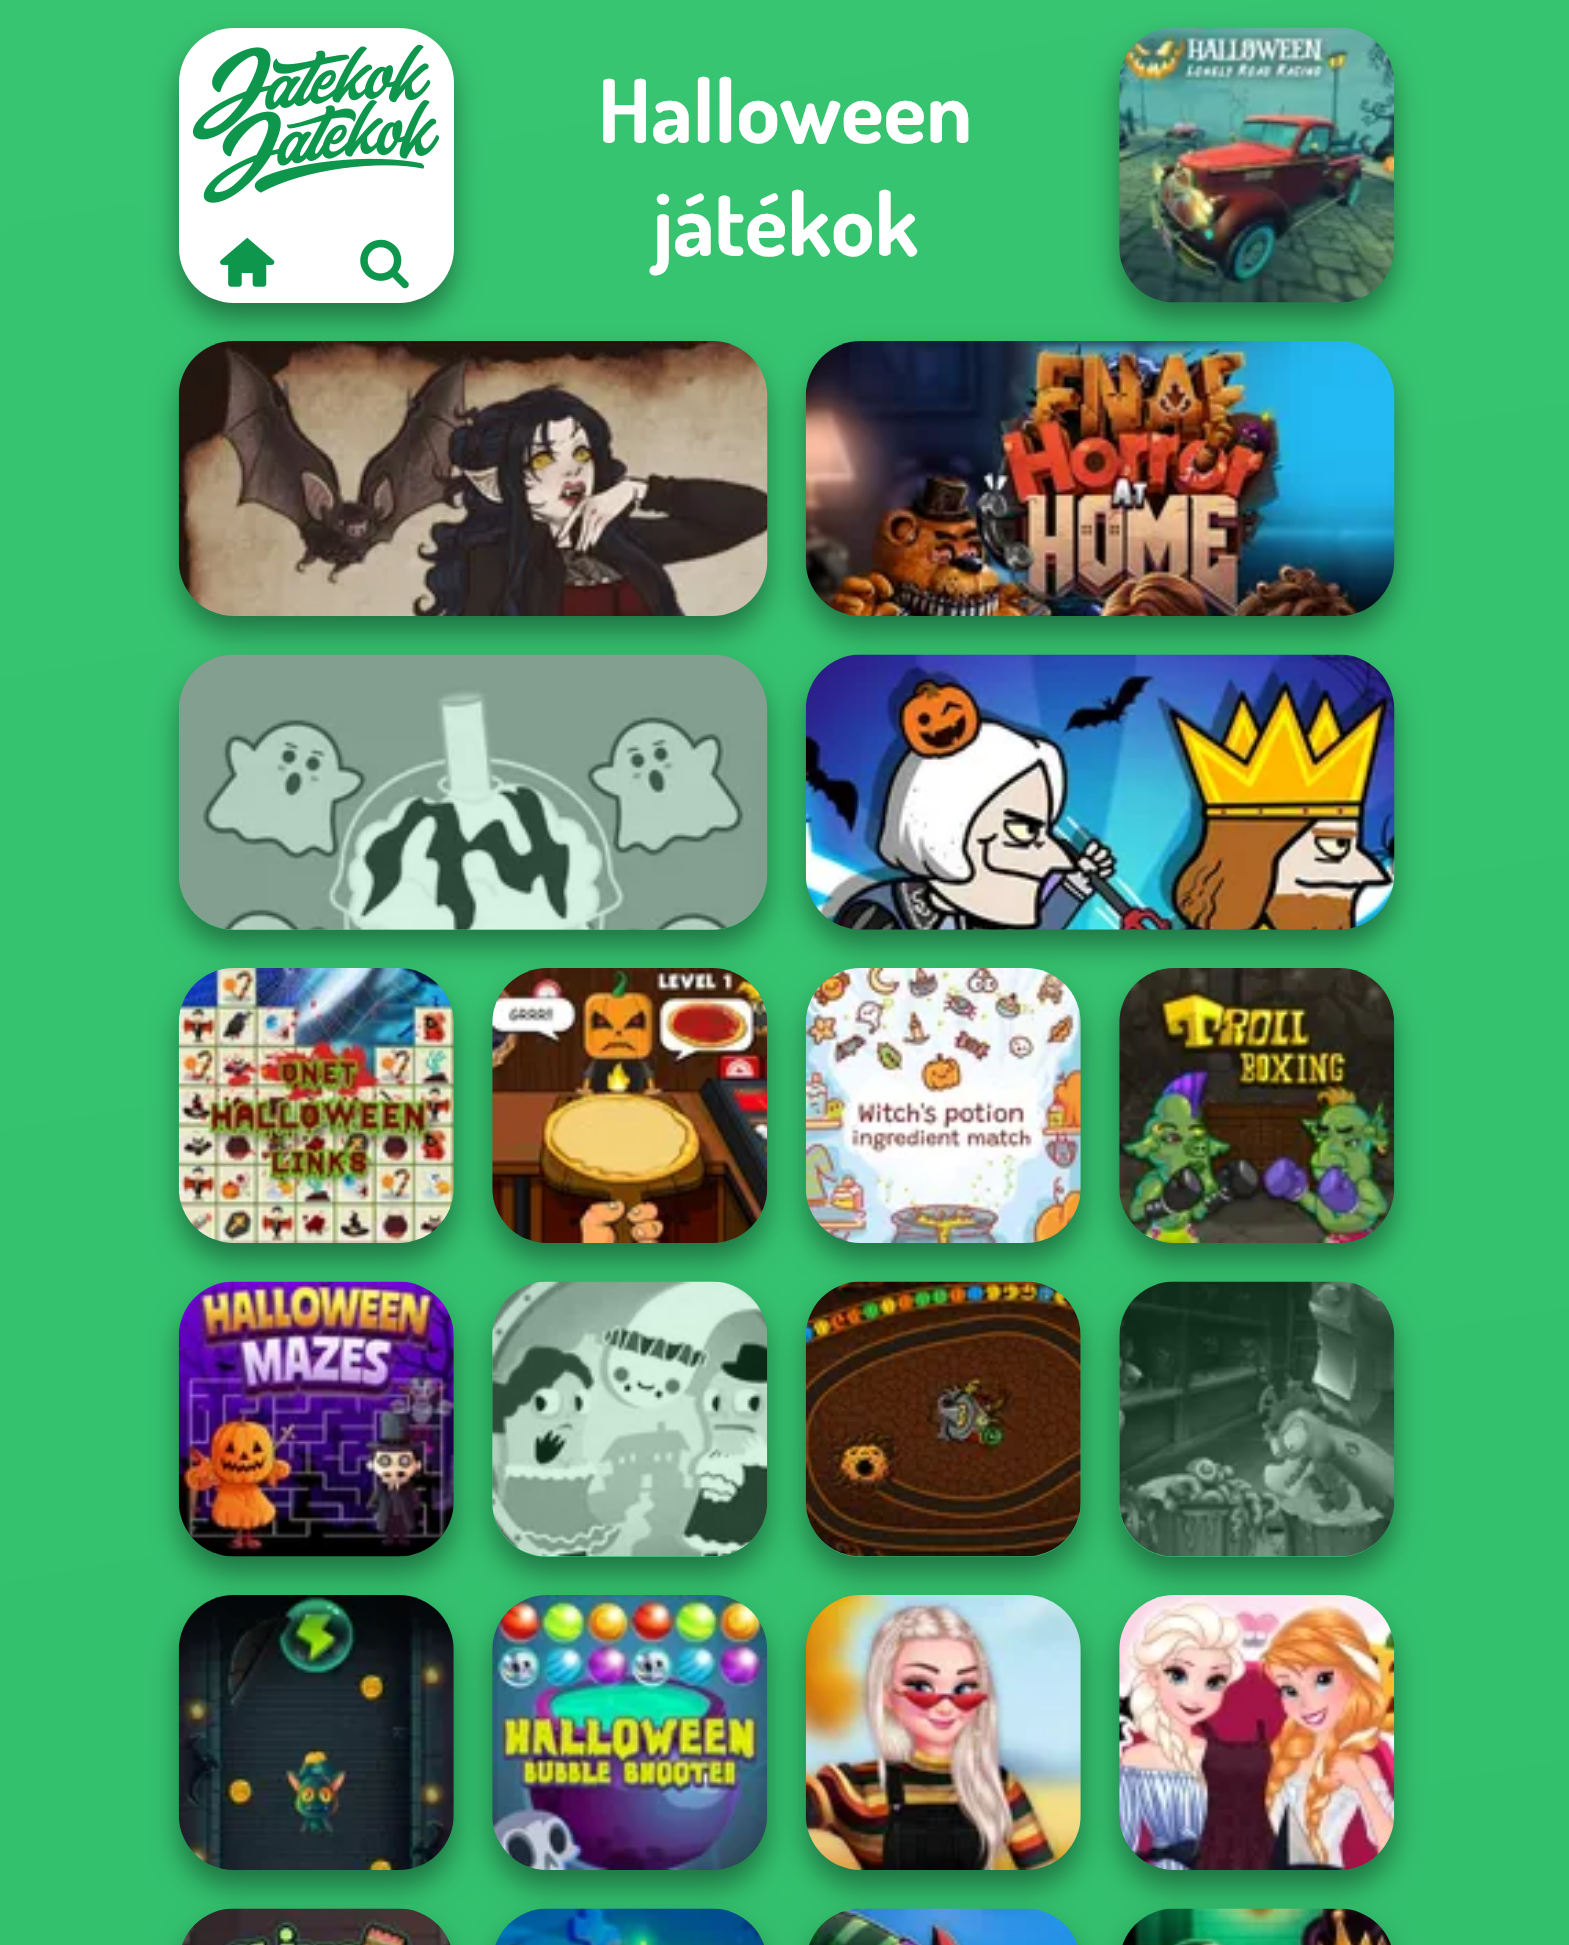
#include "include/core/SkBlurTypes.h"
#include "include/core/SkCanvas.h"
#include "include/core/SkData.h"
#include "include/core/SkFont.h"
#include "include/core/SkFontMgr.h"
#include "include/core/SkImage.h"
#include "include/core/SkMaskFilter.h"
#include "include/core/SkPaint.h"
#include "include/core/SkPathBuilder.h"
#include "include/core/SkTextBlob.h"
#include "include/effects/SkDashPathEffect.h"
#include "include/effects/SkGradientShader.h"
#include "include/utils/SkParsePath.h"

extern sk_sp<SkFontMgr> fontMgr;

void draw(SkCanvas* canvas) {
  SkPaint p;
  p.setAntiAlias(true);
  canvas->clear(SK_ColorWHITE);
  {
    const SkColor colors[] = {SkColorSetRGB(55, 197, 113), SkColorSetRGB(13, 150, 76)};
    const float stops[] = {0, 1};
    const SkPoint ends[] = {{-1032, 182}, {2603, 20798}};
    p.setShader(SkGradientShader::MakeLinear(ends, colors, stops, 2, SkTileMode::kClamp));
    p.setAlpha(255);
  }
  canvas->drawRect(SkRect::MakeLTRB(0, 0, 1569, 1945), p);
  p.setShader(nullptr);
  p.setColor(SkColorSetARGB(102, 0, 0, 0));
  p.setMaskFilter(SkMaskFilter::MakeBlur(kNormal_SkBlurStyle, 14));
  canvas->drawRoundRect(SkRect::MakeLTRB(179, 358, 767, 633), 55, 55, p);
  p.setMaskFilter(nullptr);
  canvas->drawImageRect(SkImages::DeferredFromEncodedData(SkData::MakeFromFileName("images/5.png")), SkRect::MakeLTRB(178, 341, 768, 616), SkSamplingOptions());
  p.setMaskFilter(SkMaskFilter::MakeBlur(kNormal_SkBlurStyle, 14));
  canvas->drawRoundRect(SkRect::MakeLTRB(179, 44, 454, 319), 55, 55, p);
  p.setMaskFilter(nullptr);
  p.setColor(SK_ColorWHITE);
  canvas->drawRoundRect(SkRect::MakeLTRB(179, 28, 454, 303), 55, 55, p);
  canvas->drawImageRect(SkImages::DeferredFromEncodedData(SkData::MakeFromFileName("images/1.png")), SkRect::MakeLTRB(193, 44, 440, 203), SkSamplingOptions());
  canvas->drawImageRect(SkImages::DeferredFromEncodedData(SkData::MakeFromFileName("images/2.png")), SkRect::MakeLTRB(220, 237, 275, 287), SkSamplingOptions());
  canvas->drawImageRect(SkImages::DeferredFromEncodedData(SkData::MakeFromFileName("images/3.png")), SkRect::MakeLTRB(360, 239, 409, 289), SkSamplingOptions());
  p.setColor(SkColorSetARGB(102, 0, 0, 0));
  p.setMaskFilter(SkMaskFilter::MakeBlur(kNormal_SkBlurStyle, 14));
  canvas->drawRoundRect(SkRect::MakeLTRB(806, 358, 1394, 633), 55, 55, p);
  p.setMaskFilter(nullptr);
  canvas->drawImageRect(SkImages::DeferredFromEncodedData(SkData::MakeFromFileName("images/6.png")), SkRect::MakeLTRB(805, 341, 1395, 616), SkSamplingOptions());
  p.setMaskFilter(SkMaskFilter::MakeBlur(kNormal_SkBlurStyle, 14));
  canvas->drawRoundRect(SkRect::MakeLTRB(1119, 44, 1394, 319), 55, 55, p);
  p.setMaskFilter(nullptr);
  canvas->drawImageRect(SkImages::DeferredFromEncodedData(SkData::MakeFromFileName("images/4.png")), SkRect::MakeLTRB(1119, 27, 1395, 303), SkSamplingOptions());
  canvas->save();
  canvas->clipPath(SkPathBuilder(SkPathFillType::kEvenOdd).moveTo(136, 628).lineTo(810, 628).lineTo(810, 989).lineTo(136, 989).close().moveTo(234, 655).lineTo(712, 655).cubicTo(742.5f, 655, 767, 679.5f, 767, 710).lineTo(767, 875).cubicTo(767, 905.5f, 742.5f, 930, 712, 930).lineTo(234, 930).cubicTo(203.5f, 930, 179, 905.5f, 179, 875).lineTo(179, 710).cubicTo(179, 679.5f, 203.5f, 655, 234, 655).close().detach(), true);
  p.setMaskFilter(SkMaskFilter::MakeBlur(kNormal_SkBlurStyle, 14));
  canvas->drawRoundRect(SkRect::MakeLTRB(179, 671, 767, 946), 55, 55, p);
  p.setMaskFilter(nullptr);
  canvas->restore();
  canvas->drawImageRect(SkImages::DeferredFromEncodedData(SkData::MakeFromFileName("images/7.png")), SkRect::MakeLTRB(178, 654, 768, 930), SkSamplingOptions());
  p.setMaskFilter(SkMaskFilter::MakeBlur(kNormal_SkBlurStyle, 14));
  canvas->drawRoundRect(SkRect::MakeLTRB(806, 671, 1394, 946), 55, 55, p);
  p.setMaskFilter(nullptr);
  canvas->drawImageRect(SkImages::DeferredFromEncodedData(SkData::MakeFromFileName("images/8.png")), SkRect::MakeLTRB(805, 654, 1395, 930), SkSamplingOptions());
  p.setMaskFilter(SkMaskFilter::MakeBlur(kNormal_SkBlurStyle, 14));
  canvas->drawRoundRect(SkRect::MakeLTRB(179, 985, 454, 1260), 55, 55, p);
  p.setMaskFilter(nullptr);
  canvas->drawImageRect(SkImages::DeferredFromEncodedData(SkData::MakeFromFileName("images/9.png")), SkRect::MakeLTRB(178, 968, 454, 1243), SkSamplingOptions());
  p.setMaskFilter(SkMaskFilter::MakeBlur(kNormal_SkBlurStyle, 14));
  canvas->drawRoundRect(SkRect::MakeLTRB(492, 985, 767, 1260), 55, 55, p);
  p.setMaskFilter(nullptr);
  canvas->drawImageRect(SkImages::DeferredFromEncodedData(SkData::MakeFromFileName("images/10.png")), SkRect::MakeLTRB(492, 968, 768, 1243), SkSamplingOptions());
  p.setMaskFilter(SkMaskFilter::MakeBlur(kNormal_SkBlurStyle, 14));
  canvas->drawRoundRect(SkRect::MakeLTRB(806, 985, 1081, 1260), 55, 55, p);
  p.setMaskFilter(nullptr);
  canvas->drawImageRect(SkImages::DeferredFromEncodedData(SkData::MakeFromFileName("images/11.png")), SkRect::MakeLTRB(805, 968, 1081, 1243), SkSamplingOptions());
  p.setMaskFilter(SkMaskFilter::MakeBlur(kNormal_SkBlurStyle, 14));
  canvas->drawRoundRect(SkRect::MakeLTRB(1119, 985, 1394, 1260), 55, 55, p);
  p.setMaskFilter(nullptr);
  canvas->drawImageRect(SkImages::DeferredFromEncodedData(SkData::MakeFromFileName("images/12.png")), SkRect::MakeLTRB(1119, 968, 1395, 1243), SkSamplingOptions());
  p.setMaskFilter(SkMaskFilter::MakeBlur(kNormal_SkBlurStyle, 14));
  canvas->drawRoundRect(SkRect::MakeLTRB(179, 1298, 454, 1573), 55, 55, p);
  p.setMaskFilter(nullptr);
  canvas->drawImageRect(SkImages::DeferredFromEncodedData(SkData::MakeFromFileName("images/13.png")), SkRect::MakeLTRB(178, 1281, 454, 1557), SkSamplingOptions());
  canvas->save();
  canvas->clipPath(SkPathBuilder(SkPathFillType::kEvenOdd).moveTo(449, 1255).lineTo(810, 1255).lineTo(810, 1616).lineTo(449, 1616).close().moveTo(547, 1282).lineTo(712, 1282).cubicTo(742.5f, 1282, 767, 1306.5f, 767, 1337).lineTo(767, 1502).cubicTo(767, 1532.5f, 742.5f, 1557, 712, 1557).lineTo(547, 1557).cubicTo(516.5f, 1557, 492, 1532.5f, 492, 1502).lineTo(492, 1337).cubicTo(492, 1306.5f, 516.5f, 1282, 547, 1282).close().detach(), true);
  p.setMaskFilter(SkMaskFilter::MakeBlur(kNormal_SkBlurStyle, 14));
  canvas->drawRoundRect(SkRect::MakeLTRB(492, 1298, 767, 1573), 55, 55, p);
  p.setMaskFilter(nullptr);
  canvas->restore();
  canvas->drawImageRect(SkImages::DeferredFromEncodedData(SkData::MakeFromFileName("images/14.png")), SkRect::MakeLTRB(492, 1281, 768, 1557), SkSamplingOptions());
  canvas->save();
  canvas->clipPath(SkPathBuilder(SkPathFillType::kEvenOdd).moveTo(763, 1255).lineTo(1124, 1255).lineTo(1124, 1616).lineTo(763, 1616).close().moveTo(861, 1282).lineTo(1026, 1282).cubicTo(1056.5f, 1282, 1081, 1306.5f, 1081, 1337).lineTo(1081, 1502).cubicTo(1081, 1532.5f, 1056.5f, 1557, 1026, 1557).lineTo(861, 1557).cubicTo(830.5f, 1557, 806, 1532.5f, 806, 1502).lineTo(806, 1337).cubicTo(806, 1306.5f, 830.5f, 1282, 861, 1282).close().detach(), true);
  p.setMaskFilter(SkMaskFilter::MakeBlur(kNormal_SkBlurStyle, 14));
  canvas->drawRoundRect(SkRect::MakeLTRB(806, 1298, 1081, 1573), 55, 55, p);
  p.setMaskFilter(nullptr);
  canvas->restore();
  canvas->drawImageRect(SkImages::DeferredFromEncodedData(SkData::MakeFromFileName("images/15.png")), SkRect::MakeLTRB(805, 1281, 1081, 1557), SkSamplingOptions());
  canvas->save();
  canvas->clipPath(SkPathBuilder(SkPathFillType::kEvenOdd).moveTo(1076, 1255).lineTo(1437, 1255).lineTo(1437, 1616).lineTo(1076, 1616).close().moveTo(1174, 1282).lineTo(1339, 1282).cubicTo(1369.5f, 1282, 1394, 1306.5f, 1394, 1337).lineTo(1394, 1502).cubicTo(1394, 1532.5f, 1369.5f, 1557, 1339, 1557).lineTo(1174, 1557).cubicTo(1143.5f, 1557, 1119, 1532.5f, 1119, 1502).lineTo(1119, 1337).cubicTo(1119, 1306.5f, 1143.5f, 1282, 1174, 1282).close().detach(), true);
  p.setMaskFilter(SkMaskFilter::MakeBlur(kNormal_SkBlurStyle, 14));
  canvas->drawRoundRect(SkRect::MakeLTRB(1119, 1298, 1394, 1573), 55, 55, p);
  p.setMaskFilter(nullptr);
  canvas->restore();
  canvas->drawImageRect(SkImages::DeferredFromEncodedData(SkData::MakeFromFileName("images/16.png")), SkRect::MakeLTRB(1119, 1281, 1395, 1557), SkSamplingOptions());
  p.setMaskFilter(SkMaskFilter::MakeBlur(kNormal_SkBlurStyle, 14));
  canvas->drawRoundRect(SkRect::MakeLTRB(179, 1612, 454, 1887), 55, 55, p);
  p.setMaskFilter(nullptr);
  canvas->drawImageRect(SkImages::DeferredFromEncodedData(SkData::MakeFromFileName("images/17.png")), SkRect::MakeLTRB(178, 1595, 454, 1870), SkSamplingOptions());
  p.setMaskFilter(SkMaskFilter::MakeBlur(kNormal_SkBlurStyle, 14));
  canvas->drawRoundRect(SkRect::MakeLTRB(492, 1612, 767, 1887), 55, 55, p);
  p.setMaskFilter(nullptr);
  canvas->drawImageRect(SkImages::DeferredFromEncodedData(SkData::MakeFromFileName("images/18.png")), SkRect::MakeLTRB(492, 1595, 768, 1870), SkSamplingOptions());
  p.setMaskFilter(SkMaskFilter::MakeBlur(kNormal_SkBlurStyle, 14));
  canvas->drawRoundRect(SkRect::MakeLTRB(806, 1612, 1081, 1887), 55, 55, p);
  p.setMaskFilter(nullptr);
  canvas->drawImageRect(SkImages::DeferredFromEncodedData(SkData::MakeFromFileName("images/19.png")), SkRect::MakeLTRB(805, 1595, 1081, 1870), SkSamplingOptions());
  p.setMaskFilter(SkMaskFilter::MakeBlur(kNormal_SkBlurStyle, 14));
  canvas->drawRoundRect(SkRect::MakeLTRB(1119, 1612, 1394, 1887), 55, 55, p);
  p.setMaskFilter(nullptr);
  canvas->drawImageRect(SkImages::DeferredFromEncodedData(SkData::MakeFromFileName("images/20.png")), SkRect::MakeLTRB(1119, 1595, 1395, 1870), SkSamplingOptions());
  p.setMaskFilter(SkMaskFilter::MakeBlur(kNormal_SkBlurStyle, 14));
  canvas->drawRoundRect(SkRect::MakeLTRB(179, 1925, 454, 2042), 55, 55, p);
  p.setMaskFilter(nullptr);
  canvas->drawImageRect(SkImages::DeferredFromEncodedData(SkData::MakeFromFileName("images/21.png")), SkRect::MakeLTRB(182, 1908, 451, 1945), SkSamplingOptions());
  p.setMaskFilter(SkMaskFilter::MakeBlur(kNormal_SkBlurStyle, 14));
  canvas->drawRoundRect(SkRect::MakeLTRB(492, 1925, 767, 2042), 55, 55, p);
  p.setMaskFilter(nullptr);
  canvas->drawImageRect(SkImages::DeferredFromEncodedData(SkData::MakeFromFileName("images/22.png")), SkRect::MakeLTRB(495, 1908, 764, 1945), SkSamplingOptions());
  p.setMaskFilter(SkMaskFilter::MakeBlur(kNormal_SkBlurStyle, 14));
  canvas->drawRoundRect(SkRect::MakeLTRB(806, 1925, 1081, 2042), 55, 55, p);
  p.setMaskFilter(nullptr);
  canvas->drawImageRect(SkImages::DeferredFromEncodedData(SkData::MakeFromFileName("images/23.png")), SkRect::MakeLTRB(809, 1908, 1078, 1945), SkSamplingOptions());
  p.setMaskFilter(SkMaskFilter::MakeBlur(kNormal_SkBlurStyle, 14));
  canvas->drawRoundRect(SkRect::MakeLTRB(1119, 1925, 1394, 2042), 55, 55, p);
  p.setMaskFilter(nullptr);
  canvas->drawImageRect(SkImages::DeferredFromEncodedData(SkData::MakeFromFileName("images/24.png")), SkRect::MakeLTRB(1122, 1908, 1391, 1945), SkSamplingOptions());
  SkFont font1(fontMgr->matchFamilyStyle("Dosis", SkFontStyle::Bold()), 88);
  font1.setSubpixel(true);
  p.setColor(SK_ColorWHITE);
  canvas->drawString("Halloween", 598, 143, font1, p);
  canvas->drawString("játékok", 653, 256, font1, p);
}
